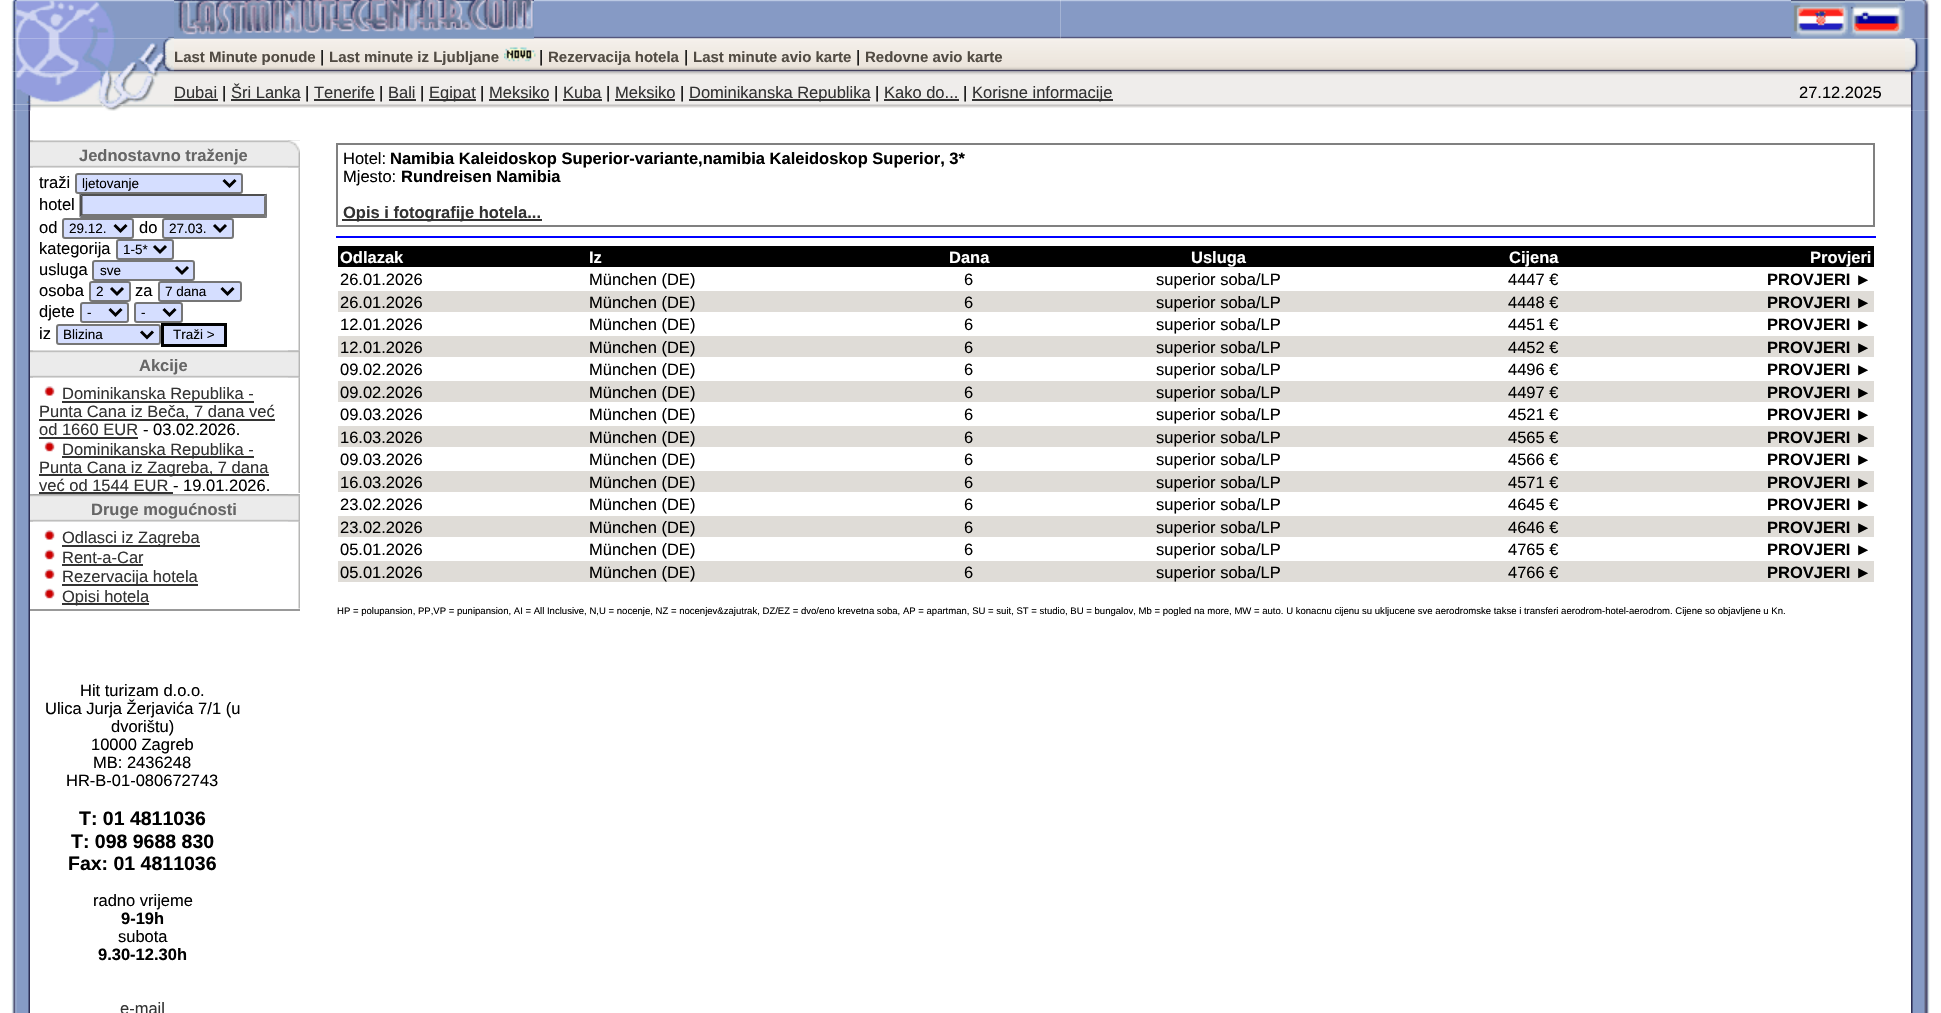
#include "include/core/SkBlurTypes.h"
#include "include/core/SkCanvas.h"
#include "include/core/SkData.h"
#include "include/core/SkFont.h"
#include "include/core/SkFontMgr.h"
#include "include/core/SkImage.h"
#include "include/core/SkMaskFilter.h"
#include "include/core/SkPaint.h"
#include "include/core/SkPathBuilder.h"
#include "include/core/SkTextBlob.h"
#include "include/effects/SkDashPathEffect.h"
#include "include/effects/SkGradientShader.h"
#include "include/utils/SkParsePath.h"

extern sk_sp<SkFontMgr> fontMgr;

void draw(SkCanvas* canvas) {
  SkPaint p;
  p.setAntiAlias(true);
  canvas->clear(SK_ColorWHITE);
  canvas->drawImageRect(SkImages::DeferredFromEncodedData(SkData::MakeFromFileName("images/1.png")), SkRect::MakeLTRB(11, 0, 174, 39), SkSamplingOptions());
  canvas->drawImageRect(SkImages::DeferredFromEncodedData(SkData::MakeFromFileName("images/2.png")), SkRect::MakeLTRB(174, 0, 1061, 39), SkSamplingOptions());
  canvas->drawImageRect(SkImages::DeferredFromEncodedData(SkData::MakeFromFileName("images/4.png")), SkRect::MakeLTRB(1060, 0, 1905, 39), SkSamplingOptions());
  canvas->drawImageRect(SkImages::DeferredFromEncodedData(SkData::MakeFromFileName("images/9.png")), SkRect::MakeLTRB(174, 38, 1905, 72), SkSamplingOptions());
  canvas->drawImageRect(SkImages::DeferredFromEncodedData(SkData::MakeFromFileName("images/3.png")), SkRect::MakeLTRB(174, 0, 534, 39), SkSamplingOptions());
  canvas->drawImageRect(SkImages::DeferredFromEncodedData(SkData::MakeFromFileName("images/5.png")), SkRect::MakeLTRB(1791, 0, 1848, 39), SkSamplingOptions());
  canvas->drawImageRect(SkImages::DeferredFromEncodedData(SkData::MakeFromFileName("images/6.png")), SkRect::MakeLTRB(1848, 0, 1905, 39), SkSamplingOptions());
  canvas->drawImageRect(SkImages::DeferredFromEncodedData(SkData::MakeFromFileName("images/7.png")), SkRect::MakeLTRB(1905, 0, 1930, 39), SkSamplingOptions());
  canvas->drawImageRect(SkImages::DeferredFromEncodedData(SkData::MakeFromFileName("images/8.png")), SkRect::MakeLTRB(11, 38, 174, 72), SkSamplingOptions());
  canvas->drawImageRect(SkImages::DeferredFromEncodedData(SkData::MakeFromFileName("images/10.png")), SkRect::MakeLTRB(504, 47, 536, 62), SkSamplingOptions());
  canvas->drawImageRect(SkImages::DeferredFromEncodedData(SkData::MakeFromFileName("images/15.png")), SkRect::MakeLTRB(1770, 71, 1911, 108), SkSamplingOptions());
  canvas->drawImageRect(SkImages::DeferredFromEncodedData(SkData::MakeFromFileName("images/11.png")), SkRect::MakeLTRB(1905, 38, 1930, 72), SkSamplingOptions());
  canvas->drawImageRect(SkImages::DeferredFromEncodedData(SkData::MakeFromFileName("images/12.png")), SkRect::MakeLTRB(11, 71, 174, 105), SkSamplingOptions());
  canvas->drawImageRect(SkImages::DeferredFromEncodedData(SkData::MakeFromFileName("images/17.png")), SkRect::MakeLTRB(11, 110, 30, 1013), SkSamplingOptions());
  canvas->drawImageRect(SkImages::DeferredFromEncodedData(SkData::MakeFromFileName("images/13.png")), SkRect::MakeLTRB(11, 104, 174, 111), SkSamplingOptions());
  canvas->drawImageRect(SkImages::DeferredFromEncodedData(SkData::MakeFromFileName("images/14.png")), SkRect::MakeLTRB(174, 71, 1770, 108), SkSamplingOptions());
  p.setColor(SkColorSetRGB(51, 51, 51));
  canvas->drawRect(SkRect::MakeLTRB(174, 99, 218, 101), p);
  canvas->drawRect(SkRect::MakeLTRB(231, 99, 300, 101), p);
  canvas->drawRect(SkRect::MakeLTRB(314, 99, 375, 101), p);
  canvas->drawRect(SkRect::MakeLTRB(389, 99, 416, 101), p);
  canvas->drawRect(SkRect::MakeLTRB(429, 99, 476, 101), p);
  canvas->drawRect(SkRect::MakeLTRB(489, 99, 549, 101), p);
  canvas->drawRect(SkRect::MakeLTRB(563, 99, 602, 101), p);
  canvas->drawRect(SkRect::MakeLTRB(615, 99, 675, 101), p);
  canvas->drawRect(SkRect::MakeLTRB(689, 99, 870, 101), p);
  canvas->drawRect(SkRect::MakeLTRB(884, 99, 959, 101), p);
  canvas->drawRect(SkRect::MakeLTRB(972, 99, 1113, 101), p);
  canvas->drawImageRect(SkImages::DeferredFromEncodedData(SkData::MakeFromFileName("images/36.png")), SkRect::MakeLTRB(1911, 110, 1930, 1013), SkSamplingOptions());
  canvas->drawImageRect(SkImages::DeferredFromEncodedData(SkData::MakeFromFileName("images/16.png")), SkRect::MakeLTRB(1911, 71, 1930, 111), SkSamplingOptions());
  canvas->drawImageRect(SkImages::DeferredFromEncodedData(SkData::MakeFromFileName("images/18.png")), SkRect::MakeLTRB(12, 110, 30, 111), SkSamplingOptions());
  canvas->drawImageRect(SkImages::DeferredFromEncodedData(SkData::MakeFromFileName("images/19.png")), SkRect::MakeLTRB(30, 140, 39, 168), SkSamplingOptions());
  canvas->drawImageRect(SkImages::DeferredFromEncodedData(SkData::MakeFromFileName("images/20.png")), SkRect::MakeLTRB(30, 140, 33, 168), SkSamplingOptions());
  canvas->drawImageRect(SkImages::DeferredFromEncodedData(SkData::MakeFromFileName("images/21.png")), SkRect::MakeLTRB(39, 140, 288, 168), SkSamplingOptions());
  canvas->drawImageRect(SkImages::DeferredFromEncodedData(SkData::MakeFromFileName("images/22.png")), SkRect::MakeLTRB(288, 140, 300, 168), SkSamplingOptions());
  canvas->drawImageRect(SkImages::DeferredFromEncodedData(SkData::MakeFromFileName("images/24.png")), SkRect::MakeLTRB(288, 167, 300, 351), SkSamplingOptions());
  canvas->drawImageRect(SkImages::DeferredFromEncodedData(SkData::MakeFromFileName("images/23.png")), SkRect::MakeLTRB(288, 140, 300, 168), SkSamplingOptions());
  p.setColor(SkColorSetRGB(213, 222, 255));
  canvas->drawRoundRect(SkRect::MakeLTRB(76, 174, 242, 193), 2, 2, p);
  p.setStyle(SkPaint::kStroke_Style);
  p.setStrokeWidth(2);
  p.setColor(SkColorSetRGB(118, 118, 118));
  canvas->drawRoundRect(SkRect::MakeLTRB(76, 174, 242, 193), 2, 2, p);
  p.setStrokeWidth(3);
  p.setColor(SK_ColorBLACK);
  canvas->drawPath(SkPathBuilder().moveTo(223.5f, 180).lineTo(229.5f, 186).lineTo(235.5f, 180).detach(), p);
  p.setStyle(SkPaint::kFill_Style);
  p.setColor(SkColorSetRGB(213, 222, 255));
  canvas->drawRect(SkRect::MakeLTRB(80, 194, 267, 218), p);
  p.setColor(SkColorSetRGB(79, 79, 79));
  canvas->drawPath(SkPathBuilder().moveTo(80, 194).lineTo(267, 194).lineTo(264, 196).lineTo(82, 196).close().detach(), p);
  p.setColor(SkColorSetRGB(118, 118, 118));
  canvas->drawPath(SkPathBuilder().moveTo(267, 193.5f).lineTo(267, 217.5f).lineTo(264, 214.5f).lineTo(264, 196.5f).close().detach(), p);
  canvas->drawPath(SkPathBuilder().moveTo(267, 218).lineTo(80, 218).lineTo(82, 214).lineTo(264, 214).close().detach(), p);
  p.setColor(SkColorSetRGB(79, 79, 79));
  canvas->drawPath(SkPathBuilder().moveTo(79.5f, 217.5f).lineTo(79.5f, 193.5f).lineTo(82.5f, 196.5f).lineTo(82.5f, 214.5f).close().detach(), p);
  p.setColor(SkColorSetRGB(213, 222, 255));
  canvas->drawRoundRect(SkRect::MakeLTRB(63, 219, 133, 238), 2, 2, p);
  p.setStyle(SkPaint::kStroke_Style);
  p.setStrokeWidth(2);
  p.setColor(SkColorSetRGB(118, 118, 118));
  canvas->drawRoundRect(SkRect::MakeLTRB(63, 219, 133, 238), 2, 2, p);
  p.setStrokeWidth(3);
  p.setColor(SK_ColorBLACK);
  canvas->drawPath(SkPathBuilder().moveTo(114.5f, 225).lineTo(120.5f, 231).lineTo(126.5f, 225).detach(), p);
  p.setStyle(SkPaint::kFill_Style);
  p.setColor(SkColorSetRGB(213, 222, 255));
  canvas->drawRoundRect(SkRect::MakeLTRB(163, 219, 233, 238), 2, 2, p);
  p.setStyle(SkPaint::kStroke_Style);
  p.setStrokeWidth(2);
  p.setColor(SkColorSetRGB(118, 118, 118));
  canvas->drawRoundRect(SkRect::MakeLTRB(163, 219, 233, 238), 2, 2, p);
  p.setStrokeWidth(3);
  p.setColor(SK_ColorBLACK);
  canvas->drawPath(SkPathBuilder().moveTo(214, 225).lineTo(220, 231).lineTo(226, 225).detach(), p);
  p.setStyle(SkPaint::kFill_Style);
  p.setColor(SkColorSetRGB(213, 222, 255));
  canvas->drawRoundRect(SkRect::MakeLTRB(117, 240, 173, 259), 2, 2, p);
  p.setStyle(SkPaint::kStroke_Style);
  p.setStrokeWidth(2);
  p.setColor(SkColorSetRGB(118, 118, 118));
  canvas->drawRoundRect(SkRect::MakeLTRB(117, 240, 173, 259), 2, 2, p);
  p.setStrokeWidth(3);
  p.setColor(SK_ColorBLACK);
  canvas->drawPath(SkPathBuilder().moveTo(154, 246).lineTo(160, 252).lineTo(166, 246).detach(), p);
  p.setStyle(SkPaint::kFill_Style);
  p.setColor(SkColorSetRGB(213, 222, 255));
  canvas->drawRoundRect(SkRect::MakeLTRB(93, 261, 194, 280), 2, 2, p);
  p.setStyle(SkPaint::kStroke_Style);
  p.setStrokeWidth(2);
  p.setColor(SkColorSetRGB(118, 118, 118));
  canvas->drawRoundRect(SkRect::MakeLTRB(93, 261, 194, 280), 2, 2, p);
  p.setStrokeWidth(3);
  p.setColor(SK_ColorBLACK);
  canvas->drawPath(SkPathBuilder().moveTo(176, 267).lineTo(182, 273).lineTo(188, 267).detach(), p);
  p.setStyle(SkPaint::kFill_Style);
  p.setColor(SkColorSetRGB(213, 222, 255));
  canvas->drawRoundRect(SkRect::MakeLTRB(90, 282, 130, 301), 2, 2, p);
  p.setStyle(SkPaint::kStroke_Style);
  p.setStrokeWidth(2);
  p.setColor(SkColorSetRGB(118, 118, 118));
  canvas->drawRoundRect(SkRect::MakeLTRB(90, 282, 130, 301), 2, 2, p);
  p.setStrokeWidth(3);
  p.setColor(SK_ColorBLACK);
  canvas->drawPath(SkPathBuilder().moveTo(111, 288).lineTo(117, 294).lineTo(123, 288).detach(), p);
  p.setStyle(SkPaint::kFill_Style);
  p.setColor(SkColorSetRGB(213, 222, 255));
  canvas->drawRoundRect(SkRect::MakeLTRB(159, 282, 241, 301), 2, 2, p);
  p.setStyle(SkPaint::kStroke_Style);
  p.setStrokeWidth(2);
  p.setColor(SkColorSetRGB(118, 118, 118));
  canvas->drawRoundRect(SkRect::MakeLTRB(159, 282, 241, 301), 2, 2, p);
  p.setStrokeWidth(3);
  p.setColor(SK_ColorBLACK);
  canvas->drawPath(SkPathBuilder().moveTo(221.5f, 288).lineTo(227.5f, 294).lineTo(233.5f, 288).detach(), p);
  p.setStyle(SkPaint::kFill_Style);
  p.setColor(SkColorSetRGB(213, 222, 255));
  canvas->drawRoundRect(SkRect::MakeLTRB(81, 303, 128, 322), 2, 2, p);
  p.setStyle(SkPaint::kStroke_Style);
  p.setStrokeWidth(2);
  p.setColor(SkColorSetRGB(118, 118, 118));
  canvas->drawRoundRect(SkRect::MakeLTRB(81, 303, 128, 322), 2, 2, p);
  p.setStrokeWidth(3);
  p.setColor(SK_ColorBLACK);
  canvas->drawPath(SkPathBuilder().moveTo(109.5f, 309).lineTo(115.5f, 315).lineTo(121.5f, 309).detach(), p);
  p.setStyle(SkPaint::kFill_Style);
  p.setColor(SkColorSetRGB(213, 222, 255));
  canvas->drawRoundRect(SkRect::MakeLTRB(135, 303, 182, 322), 2, 2, p);
  p.setStyle(SkPaint::kStroke_Style);
  p.setStrokeWidth(2);
  p.setColor(SkColorSetRGB(118, 118, 118));
  canvas->drawRoundRect(SkRect::MakeLTRB(135, 303, 182, 322), 2, 2, p);
  p.setStrokeWidth(3);
  p.setColor(SK_ColorBLACK);
  canvas->drawPath(SkPathBuilder().moveTo(163.5f, 309).lineTo(169.5f, 315).lineTo(175.5f, 309).detach(), p);
  p.setStyle(SkPaint::kFill_Style);
  p.setColor(SkColorSetRGB(213, 222, 255));
  canvas->drawRoundRect(SkRect::MakeLTRB(57, 325, 160, 344), 2, 2, p);
  p.setStyle(SkPaint::kStroke_Style);
  p.setStrokeWidth(2);
  p.setColor(SkColorSetRGB(118, 118, 118));
  canvas->drawRoundRect(SkRect::MakeLTRB(57, 325, 160, 344), 2, 2, p);
  p.setStrokeWidth(3);
  p.setColor(SK_ColorBLACK);
  canvas->drawPath(SkPathBuilder().moveTo(141, 331.5f).lineTo(147, 337.5f).lineTo(153, 331.5f).detach(), p);
  p.setStyle(SkPaint::kFill_Style);
  p.setColor(SkColorSetRGB(213, 222, 255));
  canvas->drawRect(SkRect::MakeLTRB(162.5f, 324.5f, 225.5f, 345.5f), p);
  p.setStyle(SkPaint::kStroke_Style);
  p.setColor(SK_ColorBLACK);
  canvas->drawRect(SkRect::MakeLTRB(162.5f, 324.5f, 225.5f, 345.5f), p);
  canvas->drawImageRect(SkImages::DeferredFromEncodedData(SkData::MakeFromFileName("images/19.png")), SkRect::MakeLTRB(30, 350, 39, 378), SkSamplingOptions());
  canvas->drawImageRect(SkImages::DeferredFromEncodedData(SkData::MakeFromFileName("images/20.png")), SkRect::MakeLTRB(30, 350, 33, 378), SkSamplingOptions());
  canvas->drawImageRect(SkImages::DeferredFromEncodedData(SkData::MakeFromFileName("images/21.png")), SkRect::MakeLTRB(39, 350, 288, 378), SkSamplingOptions());
  canvas->drawImageRect(SkImages::DeferredFromEncodedData(SkData::MakeFromFileName("images/25.png")), SkRect::MakeLTRB(288, 350, 300, 378), SkSamplingOptions());
  canvas->drawImageRect(SkImages::DeferredFromEncodedData(SkData::MakeFromFileName("images/29.png")), SkRect::MakeLTRB(288, 377, 300, 493), SkSamplingOptions());
  canvas->drawImageRect(SkImages::DeferredFromEncodedData(SkData::MakeFromFileName("images/26.png")), SkRect::MakeLTRB(288, 350, 300, 378), SkSamplingOptions());
  canvas->drawImageRect(SkImages::DeferredFromEncodedData(SkData::MakeFromFileName("images/27.png")), SkRect::MakeLTRB(44, 386, 55, 396), SkSamplingOptions());
  p.setStyle(SkPaint::kFill_Style);
  p.setColor(SkColorSetRGB(51, 51, 51));
  canvas->drawRect(SkRect::MakeLTRB(62, 401, 254, 403), p);
  canvas->drawRect(SkRect::MakeLTRB(39, 419, 275, 421), p);
  canvas->drawRect(SkRect::MakeLTRB(39, 437, 138, 439), p);
  canvas->drawImageRect(SkImages::DeferredFromEncodedData(SkData::MakeFromFileName("images/28.png")), SkRect::MakeLTRB(44, 441, 55, 452), SkSamplingOptions());
  canvas->drawRect(SkRect::MakeLTRB(62, 456, 254, 458), p);
  canvas->drawRect(SkRect::MakeLTRB(39, 474, 269, 476), p);
  canvas->drawRect(SkRect::MakeLTRB(39, 492, 173, 494), p);
  p.setColor(SkColorSetRGB(153, 153, 153));
  canvas->drawRect(SkRect::MakeLTRB(30, 494, 300, 495), p);
  canvas->drawImageRect(SkImages::DeferredFromEncodedData(SkData::MakeFromFileName("images/30.png")), SkRect::MakeLTRB(30, 494, 39, 522), SkSamplingOptions());
  canvas->drawImageRect(SkImages::DeferredFromEncodedData(SkData::MakeFromFileName("images/31.png")), SkRect::MakeLTRB(30, 494, 33, 522), SkSamplingOptions());
  canvas->drawImageRect(SkImages::DeferredFromEncodedData(SkData::MakeFromFileName("images/32.png")), SkRect::MakeLTRB(39, 494, 288, 522), SkSamplingOptions());
  canvas->drawImageRect(SkImages::DeferredFromEncodedData(SkData::MakeFromFileName("images/33.png")), SkRect::MakeLTRB(288, 494, 300, 522), SkSamplingOptions());
  canvas->drawImageRect(SkImages::DeferredFromEncodedData(SkData::MakeFromFileName("images/35.png")), SkRect::MakeLTRB(288, 521, 300, 609), SkSamplingOptions());
  canvas->drawImageRect(SkImages::DeferredFromEncodedData(SkData::MakeFromFileName("images/34.png")), SkRect::MakeLTRB(288, 494, 300, 522), SkSamplingOptions());
  canvas->drawImageRect(SkImages::DeferredFromEncodedData(SkData::MakeFromFileName("images/27.png")), SkRect::MakeLTRB(44, 530, 55, 540), SkSamplingOptions());
  p.setColor(SkColorSetRGB(51, 51, 51));
  canvas->drawRect(SkRect::MakeLTRB(62, 545, 200, 547), p);
  canvas->drawImageRect(SkImages::DeferredFromEncodedData(SkData::MakeFromFileName("images/28.png")), SkRect::MakeLTRB(44, 549, 55, 560), SkSamplingOptions());
  canvas->drawRect(SkRect::MakeLTRB(62, 564, 143, 566), p);
  canvas->drawImageRect(SkImages::DeferredFromEncodedData(SkData::MakeFromFileName("images/27.png")), SkRect::MakeLTRB(44, 569, 55, 579), SkSamplingOptions());
  canvas->drawRect(SkRect::MakeLTRB(62, 584, 198, 586), p);
  canvas->drawImageRect(SkImages::DeferredFromEncodedData(SkData::MakeFromFileName("images/28.png")), SkRect::MakeLTRB(44, 588, 55, 599), SkSamplingOptions());
  canvas->drawRect(SkRect::MakeLTRB(62, 603, 149, 605), p);
  p.setColor(SkColorSetRGB(153, 153, 153));
  canvas->drawRect(SkRect::MakeLTRB(30, 609, 300, 611), p);
  p.setStyle(SkPaint::kStroke_Style);
  p.setStrokeWidth(2);
  p.setColor(SkColorSetRGB(128, 128, 128));
  canvas->drawRect(SkRect::MakeLTRB(337, 144, 1874, 226), p);
  p.setStyle(SkPaint::kFill_Style);
  p.setColor(SkColorSetRGB(51, 51, 51));
  canvas->drawRect(SkRect::MakeLTRB(342, 219, 542, 221), p);
  p.setColor(SkColorSetRGB(0, 0, 255));
  canvas->drawRect(SkRect::MakeLTRB(336, 236, 1876, 238), p);
  p.setColor(SK_ColorBLACK);
  canvas->drawRect(SkRect::MakeLTRB(338, 246, 1874, 267), p);
  p.setColor(SkColorSetRGB(223, 220, 215));
  canvas->drawRect(SkRect::MakeLTRB(338, 291, 1874, 312), p);
  canvas->drawRect(SkRect::MakeLTRB(338, 336, 1874, 357), p);
  canvas->drawRect(SkRect::MakeLTRB(338, 381, 1874, 402), p);
  canvas->drawRect(SkRect::MakeLTRB(338, 426, 1874, 447), p);
  canvas->drawRect(SkRect::MakeLTRB(338, 471, 1874, 492), p);
  canvas->drawRect(SkRect::MakeLTRB(338, 516, 1874, 537), p);
  canvas->drawRect(SkRect::MakeLTRB(338, 561, 1874, 582), p);
  canvas->drawImageRect(SkImages::DeferredFromEncodedData(SkData::MakeFromFileName("images/37.png")), SkRect::MakeLTRB(1911, 110, 1929, 111), SkSamplingOptions());
  SkFont font1(fontMgr->matchFamilyStyle("Liberation Sans", SkFontStyle::Bold()), 15);
  font1.setSubpixel(true);
  p.setColor(SkColorSetRGB(81, 75, 67));
  canvas->drawString("Last Minute ponude", 174, 62, font1, p);
  SkFont font2(fontMgr->matchFamilyStyle("Liberation Sans", SkFontStyle::Normal()), 16.5f);
  font2.setSubpixel(true);
  p.setColor(SK_ColorBLACK);
  canvas->drawString("|", 320, 62, font2, p);
  p.setColor(SkColorSetRGB(81, 75, 67));
  canvas->drawString("Last minute iz Ljubljane", 329, 62, font1, p);
  p.setColor(SK_ColorBLACK);
  canvas->drawString("|", 539, 62, font2, p);
  p.setColor(SkColorSetRGB(81, 75, 67));
  canvas->drawString("Rezervacija hotela", 548, 62, font1, p);
  p.setColor(SK_ColorBLACK);
  canvas->drawString("|", 684, 62, font2, p);
  p.setColor(SkColorSetRGB(81, 75, 67));
  canvas->drawString("Last minute avio karte", 693, 62, font1, p);
  p.setColor(SK_ColorBLACK);
  canvas->drawString("|", 856, 62, font2, p);
  p.setColor(SkColorSetRGB(81, 75, 67));
  canvas->drawString("Redovne avio karte", 865, 62, font1, p);
  p.setColor(SkColorSetRGB(51, 51, 51));
  canvas->drawString("Dubai", 174, 98, font2, p);
  p.setColor(SK_ColorBLACK);
  canvas->drawString("|", 222, 98, font2, p);
  p.setColor(SkColorSetRGB(51, 51, 51));
  canvas->drawString("Šri Lanka", 231, 98, font2, p);
  p.setColor(SK_ColorBLACK);
  canvas->drawString("|", 305, 98, font2, p);
  p.setColor(SkColorSetRGB(51, 51, 51));
  canvas->drawString("Tenerife", 314, 98, font2, p);
  p.setColor(SK_ColorBLACK);
  canvas->drawString("|", 379, 98, font2, p);
  p.setColor(SkColorSetRGB(51, 51, 51));
  canvas->drawString("Bali", 388, 98, font2, p);
  p.setColor(SK_ColorBLACK);
  canvas->drawString("|", 420, 98, font2, p);
  p.setColor(SkColorSetRGB(51, 51, 51));
  canvas->drawString("Egipat", 429, 98, font2, p);
  p.setColor(SK_ColorBLACK);
  canvas->drawString("|", 480, 98, font2, p);
  p.setColor(SkColorSetRGB(51, 51, 51));
  canvas->drawString("Meksiko", 489, 98, font2, p);
  p.setColor(SK_ColorBLACK);
  canvas->drawString("|", 554, 98, font2, p);
  p.setColor(SkColorSetRGB(51, 51, 51));
  canvas->drawString("Kuba", 563, 98, font2, p);
  p.setColor(SK_ColorBLACK);
  canvas->drawString("|", 606, 98, font2, p);
  p.setColor(SkColorSetRGB(51, 51, 51));
  canvas->drawString("Meksiko", 615, 98, font2, p);
  p.setColor(SK_ColorBLACK);
  canvas->drawString("|", 680, 98, font2, p);
  p.setColor(SkColorSetRGB(51, 51, 51));
  canvas->drawString("Dominikanska Republika", 689, 98, font2, p);
  p.setColor(SK_ColorBLACK);
  canvas->drawString("|", 875, 98, font2, p);
  p.setColor(SkColorSetRGB(51, 51, 51));
  canvas->drawString("Kako do...", 884, 98, font2, p);
  p.setColor(SK_ColorBLACK);
  canvas->drawString("|", 963, 98, font2, p);
  p.setColor(SkColorSetRGB(51, 51, 51));
  canvas->drawString("Korisne informacije", 972, 98, font2, p);
  p.setColor(SK_ColorBLACK);
  canvas->drawString("27.12.2025", 1799, 98, font2, p);
  SkFont font3(fontMgr->matchFamilyStyle("Liberation Sans", SkFontStyle::Bold()), 16.5f);
  font3.setSubpixel(true);
  p.setColor(SkColorSetRGB(102, 102, 102));
  canvas->drawString("Jednostavno traženje", 79, 161, font3, p);
  p.setColor(SK_ColorBLACK);
  canvas->drawString("traži", 39, 188, font2, p);
  SkFont font4(fontMgr->matchFamilyStyle("Liberation Sans", SkFontStyle::Normal()), 13.5f);
  font4.setSubpixel(true);
  canvas->drawString("ljetovanje", 82, 188, font4, p);
  canvas->drawString("hotel", 39, 210, font2, p);
  canvas->drawString("od", 39, 233, font2, p);
  canvas->drawString("29.12.", 69, 233, font4, p);
  canvas->drawString("do", 139, 233, font2, p);
  canvas->drawString("27.03.", 169, 233, font4, p);
  canvas->drawString("kategorija", 39, 254, font2, p);
  canvas->drawString("1-5*", 123, 254, font4, p);
  canvas->drawString("usluga", 39, 275, font2, p);
  canvas->drawString("sve", 100, 275, font4, p);
  canvas->drawString("osoba", 39, 296, font2, p);
  canvas->drawString("2", 96, 296, font4, p);
  canvas->drawString("za", 135, 296, font2, p);
  canvas->drawString("7 dana", 165, 296, font4, p);
  canvas->drawString("djete", 39, 317, font2, p);
  canvas->drawString("-", 87, 317, font4, p);
  canvas->drawString("-", 141, 317, font4, p);
  canvas->drawString("iz", 39, 339, font2, p);
  canvas->drawString("Blizina", 63, 339, font4, p);
  canvas->drawString("Traži >", 173, 339, font4, p);
  p.setColor(SkColorSetRGB(102, 102, 102));
  canvas->drawString("Akcije", 139, 371, font3, p);
  p.setColor(SkColorSetRGB(51, 51, 51));
  canvas->drawString("Dominikanska Republika -", 62, 399, font2, p);
  canvas->drawString("Punta Cana iz Beča, 7 dana već", 39, 417, font2, p);
  canvas->drawString("od 1660 EUR", 39, 435, font2, p);
  p.setColor(SK_ColorBLACK);
  canvas->drawString("- 03.02.2026.", 143, 435, font2, p);
  p.setColor(SkColorSetRGB(51, 51, 51));
  canvas->drawString("Dominikanska Republika -", 62, 455, font2, p);
  canvas->drawString("Punta Cana iz Zagreba, 7 dana", 39, 473, font2, p);
  canvas->drawString("već od 1544 EUR", 39, 491, font2, p);
  p.setColor(SK_ColorBLACK);
  canvas->drawString("- 19.01.2026.", 173, 491, font2, p);
  p.setColor(SkColorSetRGB(102, 102, 102));
  canvas->drawString("Druge mogućnosti", 91, 515, font3, p);
  p.setColor(SkColorSetRGB(51, 51, 51));
  canvas->drawString("Odlasci iz Zagreba", 62, 543, font2, p);
  canvas->drawString("Rent-a-Car", 62, 563, font2, p);
  canvas->drawString("Rezervacija hotela", 62, 582, font2, p);
  canvas->drawString("Opisi hotela", 62, 602, font2, p);
  p.setColor(SK_ColorBLACK);
  canvas->drawString("Hit turizam d.o.o.", 80, 696, font2, p);
  canvas->drawString("Ulica Jurja Žerjavića 7/1 (u", 45, 714, font2, p);
  canvas->drawString("dvorištu)", 111, 732, font2, p);
  canvas->drawString("10000 Zagreb", 91, 750, font2, p);
  canvas->drawString("MB: 2436248", 93, 768, font2, p);
  canvas->drawString("HR-B-01-080672743", 66, 786, font2, p);
  SkFont font5(fontMgr->matchFamilyStyle("Liberation Sans", SkFontStyle::Bold()), 19.5f);
  font5.setSubpixel(true);
  canvas->drawString("T: 01 4811036", 79, 825, font5, p);
  canvas->drawString("T: 098 9688 830", 71, 848, font5, p);
  canvas->drawString("Fax: 01 4811036", 68, 870, font5, p);
  canvas->drawString("radno vrijeme", 93, 906, font2, p);
  canvas->drawString("9-19h", 121, 924, font3, p);
  canvas->drawString("subota", 118, 942, font2, p);
  canvas->drawString("9.30-12.30h", 98, 960, font3, p);
  p.setColor(SkColorSetRGB(51, 51, 51));
  canvas->drawString("e-mail", 120, 1014, font2, p);
  p.setColor(SK_ColorBLACK);
  canvas->drawString("Hotel:", 343, 164, font2, p);
  canvas->drawString("Namibia Kaleidoskop Superior-variante,namibia Kaleidoskop Superior, 3*", 390, 164, font3, p);
  canvas->drawString("Mjesto:", 343, 182, font2, p);
  canvas->drawString("Rundreisen Namibia", 401, 182, font3, p);
  p.setColor(SkColorSetRGB(51, 51, 51));
  canvas->drawString("Opis i fotografije hotela...", 343, 218, font3, p);
  p.setColor(SK_ColorWHITE);
  canvas->drawString("Odlazak", 340, 263, font3, p);
  canvas->drawString("Iz", 589, 263, font3, p);
  canvas->drawString("Dana", 949, 263, font3, p);
  canvas->drawString("Usluga", 1191, 263, font3, p);
  canvas->drawString("Cijena", 1509, 263, font3, p);
  canvas->drawString("Provjeri", 1810, 263, font3, p);
  p.setColor(SK_ColorBLACK);
  canvas->drawString("26.01.2026", 340, 285, font2, p);
  canvas->drawString("München (DE)", 589, 285, font2, p);
  canvas->drawString("6", 964, 285, font2, p);
  canvas->drawString("superior soba/LP", 1156, 285, font2, p);
  canvas->drawString("4447 €", 1508, 285, font2, p);
  canvas->drawString("PROVJERI ►", 1767, 285, font3, p);
  canvas->drawString("26.01.2026", 340, 308, font2, p);
  canvas->drawString("München (DE)", 589, 308, font2, p);
  canvas->drawString("6", 964, 308, font2, p);
  canvas->drawString("superior soba/LP", 1156, 308, font2, p);
  canvas->drawString("4448 €", 1508, 308, font2, p);
  canvas->drawString("PROVJERI ►", 1767, 308, font3, p);
  canvas->drawString("12.01.2026", 340, 330, font2, p);
  canvas->drawString("München (DE)", 589, 330, font2, p);
  canvas->drawString("6", 964, 330, font2, p);
  canvas->drawString("superior soba/LP", 1156, 330, font2, p);
  canvas->drawString("4451 €", 1508, 330, font2, p);
  canvas->drawString("PROVJERI ►", 1767, 330, font3, p);
  canvas->drawString("12.01.2026", 340, 353, font2, p);
  canvas->drawString("München (DE)", 589, 353, font2, p);
  canvas->drawString("6", 964, 353, font2, p);
  canvas->drawString("superior soba/LP", 1156, 353, font2, p);
  canvas->drawString("4452 €", 1508, 353, font2, p);
  canvas->drawString("PROVJERI ►", 1767, 353, font3, p);
  canvas->drawString("09.02.2026", 340, 375, font2, p);
  canvas->drawString("München (DE)", 589, 375, font2, p);
  canvas->drawString("6", 964, 375, font2, p);
  canvas->drawString("superior soba/LP", 1156, 375, font2, p);
  canvas->drawString("4496 €", 1508, 375, font2, p);
  canvas->drawString("PROVJERI ►", 1767, 375, font3, p);
  canvas->drawString("09.02.2026", 340, 398, font2, p);
  canvas->drawString("München (DE)", 589, 398, font2, p);
  canvas->drawString("6", 964, 398, font2, p);
  canvas->drawString("superior soba/LP", 1156, 398, font2, p);
  canvas->drawString("4497 €", 1508, 398, font2, p);
  canvas->drawString("PROVJERI ►", 1767, 398, font3, p);
  canvas->drawString("09.03.2026", 340, 420, font2, p);
  canvas->drawString("München (DE)", 589, 420, font2, p);
  canvas->drawString("6", 964, 420, font2, p);
  canvas->drawString("superior soba/LP", 1156, 420, font2, p);
  canvas->drawString("4521 €", 1508, 420, font2, p);
  canvas->drawString("PROVJERI ►", 1767, 420, font3, p);
  canvas->drawString("16.03.2026", 340, 443, font2, p);
  canvas->drawString("München (DE)", 589, 443, font2, p);
  canvas->drawString("6", 964, 443, font2, p);
  canvas->drawString("superior soba/LP", 1156, 443, font2, p);
  canvas->drawString("4565 €", 1508, 443, font2, p);
  canvas->drawString("PROVJERI ►", 1767, 443, font3, p);
  canvas->drawString("09.03.2026", 340, 465, font2, p);
  canvas->drawString("München (DE)", 589, 465, font2, p);
  canvas->drawString("6", 964, 465, font2, p);
  canvas->drawString("superior soba/LP", 1156, 465, font2, p);
  canvas->drawString("4566 €", 1508, 465, font2, p);
  canvas->drawString("PROVJERI ►", 1767, 465, font3, p);
  canvas->drawString("16.03.2026", 340, 488, font2, p);
  canvas->drawString("München (DE)", 589, 488, font2, p);
  canvas->drawString("6", 964, 488, font2, p);
  canvas->drawString("superior soba/LP", 1156, 488, font2, p);
  canvas->drawString("4571 €", 1508, 488, font2, p);
  canvas->drawString("PROVJERI ►", 1767, 488, font3, p);
  canvas->drawString("23.02.2026", 340, 510, font2, p);
  canvas->drawString("München (DE)", 589, 510, font2, p);
  canvas->drawString("6", 964, 510, font2, p);
  canvas->drawString("superior soba/LP", 1156, 510, font2, p);
  canvas->drawString("4645 €", 1508, 510, font2, p);
  canvas->drawString("PROVJERI ►", 1767, 510, font3, p);
  canvas->drawString("23.02.2026", 340, 533, font2, p);
  canvas->drawString("München (DE)", 589, 533, font2, p);
  canvas->drawString("6", 964, 533, font2, p);
  canvas->drawString("superior soba/LP", 1156, 533, font2, p);
  canvas->drawString("4646 €", 1508, 533, font2, p);
  canvas->drawString("PROVJERI ►", 1767, 533, font3, p);
  canvas->drawString("05.01.2026", 340, 555, font2, p);
  canvas->drawString("München (DE)", 589, 555, font2, p);
  canvas->drawString("6", 964, 555, font2, p);
  canvas->drawString("superior soba/LP", 1156, 555, font2, p);
  canvas->drawString("4765 €", 1508, 555, font2, p);
  canvas->drawString("PROVJERI ►", 1767, 555, font3, p);
  canvas->drawString("05.01.2026", 340, 578, font2, p);
  canvas->drawString("München (DE)", 589, 578, font2, p);
  canvas->drawString("6", 964, 578, font2, p);
  canvas->drawString("superior soba/LP", 1156, 578, font2, p);
  canvas->drawString("4766 €", 1508, 578, font2, p);
  canvas->drawString("PROVJERI ►", 1767, 578, font3, p);
  SkFont font6(fontMgr->matchFamilyStyle("Liberation Sans", SkFontStyle::Normal()), 9.55f);
  font6.setSubpixel(true);
  canvas->drawString("HP = polupansion, PP,VP = punipansion, AI = All Inclusive, N,U = nocenje, NZ = nocenjev&zajutrak, DZ/EZ = dvo/eno krevetna soba, AP = apartman, SU = suit, ST = studio, BU = bungalov, Mb = pogled na more, MW = auto. U konacnu cijenu su ukljucene sve aerodromske takse i transferi aerodrom-hotel-aerodrom. Cijene so objavljene u Kn.", 337, 614, font6, p);
}
